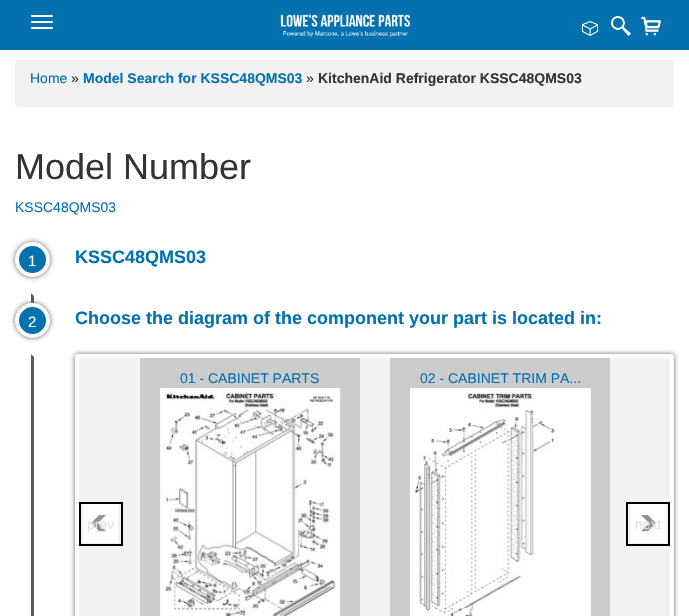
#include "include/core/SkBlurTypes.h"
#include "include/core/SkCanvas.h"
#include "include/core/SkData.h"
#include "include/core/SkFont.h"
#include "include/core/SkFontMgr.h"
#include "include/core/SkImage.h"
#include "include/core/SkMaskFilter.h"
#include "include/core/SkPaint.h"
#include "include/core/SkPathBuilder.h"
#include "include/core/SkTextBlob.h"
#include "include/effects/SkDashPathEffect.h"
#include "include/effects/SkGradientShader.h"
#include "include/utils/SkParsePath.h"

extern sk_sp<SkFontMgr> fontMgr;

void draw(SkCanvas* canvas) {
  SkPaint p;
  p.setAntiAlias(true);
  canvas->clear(SK_ColorWHITE);
  p.setColor(SkColorSetRGB(4, 113, 175));
  canvas->drawRect(SkRect::MakeLTRB(0, 0, 689, 50), p);
  p.setColor(SK_ColorWHITE);
  canvas->drawRoundRect(SkRect::MakeLTRB(31, 15, 53, 17), 1, 1, p);
  canvas->drawRoundRect(SkRect::MakeLTRB(31, 21, 53, 23), 1, 1, p);
  canvas->drawRoundRect(SkRect::MakeLTRB(31, 27, 53, 29), 1, 1, p);
  canvas->drawImageRect(SkImages::DeferredFromEncodedData(SkData::MakeFromFileName("images/1.png")), SkRect::MakeLTRB(280, 14, 410, 38), SkSamplingOptions());
  canvas->drawImageRect(SkImages::DeferredFromEncodedData(SkData::MakeFromFileName("images/2.png")), SkRect::MakeLTRB(582, 21, 598, 36), SkSamplingOptions());
  canvas->drawImageRect(SkImages::DeferredFromEncodedData(SkData::MakeFromFileName("images/3.png")), SkRect::MakeLTRB(611, 16, 631, 36), SkSamplingOptions());
  canvas->drawImageRect(SkImages::DeferredFromEncodedData(SkData::MakeFromFileName("images/4.png")), SkRect::MakeLTRB(641, 16, 661, 36), SkSamplingOptions());
  p.setColor(SkColorSetRGB(242, 242, 242));
  canvas->drawRoundRect(SkRect::MakeLTRB(15, 60, 674, 107), 4, 4, p);
  p.setColor(SkColorSetRGB(93, 93, 93));
  canvas->drawRect(SkRect::MakeLTRB(31, 242, 34, 616), p);
  p.setColor(SK_ColorWHITE);
  canvas->drawPath(SkPathBuilder().moveTo(35, 269).lineTo(35, 297).lineTo(21, 283).close().detach(), p);
  p.setColor(SkColorSetRGB(102, 102, 102));
  p.setMaskFilter(SkMaskFilter::MakeBlur(kNormal_SkBlurStyle, 2.5f));
  canvas->drawRoundRect(SkRect::MakeLTRB(15, 242, 50, 277), 17.5f, 17.5f, p);
  p.setMaskFilter(nullptr);
  p.setColor(SkColorSetRGB(4, 113, 175));
  canvas->drawCircle(32.5f, 259.5f, 15.5f, p);
  p.setStyle(SkPaint::kStroke_Style);
  p.setStrokeWidth(4);
  p.setColor(SK_ColorWHITE);
  canvas->drawCircle(32.5f, 259.5f, 15.5f, p);
  p.setStyle(SkPaint::kFill_Style);
  canvas->drawPath(SkPathBuilder().moveTo(35, 330).lineTo(35, 358).lineTo(21, 344).close().detach(), p);
  p.setColor(SkColorSetRGB(102, 102, 102));
  p.setMaskFilter(SkMaskFilter::MakeBlur(kNormal_SkBlurStyle, 2.5f));
  canvas->drawRoundRect(SkRect::MakeLTRB(15, 303, 50, 338), 17.5f, 17.5f, p);
  p.setMaskFilter(nullptr);
  p.setColor(SkColorSetRGB(4, 113, 175));
  canvas->drawCircle(32.5f, 320.5f, 15.5f, p);
  p.setStyle(SkPaint::kStroke_Style);
  p.setColor(SK_ColorWHITE);
  canvas->drawCircle(32.5f, 320.5f, 15.5f, p);
  p.setStyle(SkPaint::kFill_Style);
  p.setColor(SkColorSetRGB(102, 102, 102));
  p.setMaskFilter(SkMaskFilter::MakeBlur(kNormal_SkBlurStyle, 2.5f));
  canvas->drawRoundRect(SkRect::MakeLTRB(75, 354, 674, 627), 3, 3, p);
  p.setMaskFilter(nullptr);
  p.setColor(SkColorSetRGB(242, 242, 242));
  canvas->drawRoundRect(SkRect::MakeLTRB(77, 356, 672, 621), 1, 1, p);
  p.setStyle(SkPaint::kStroke_Style);
  p.setColor(SK_ColorWHITE);
  canvas->drawRoundRect(SkRect::MakeLTRB(77, 356, 672, 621), 1, 1, p);
  p.setStyle(SkPaint::kFill_Style);
  p.setColor(SkColorSetRGB(204, 204, 204));
  canvas->drawRect(SkRect::MakeLTRB(140, 358, 360, 616), p);
  canvas->drawImageRect(SkImages::DeferredFromEncodedData(SkData::MakeFromFileName("images/5.png")), SkRect::MakeLTRB(160, 388, 341, 616), SkSamplingOptions());
  canvas->drawRect(SkRect::MakeLTRB(390, 358, 610, 616), p);
  canvas->drawImageRect(SkImages::DeferredFromEncodedData(SkData::MakeFromFileName("images/6.png")), SkRect::MakeLTRB(410, 388, 591, 616), SkSamplingOptions());
  canvas->drawImageRect(SkImages::DeferredFromEncodedData(SkData::MakeFromFileName("images/7.png")), SkRect::MakeLTRB(83, 504, 118, 543), SkSamplingOptions());
  p.setStyle(SkPaint::kStroke_Style);
  p.setStrokeWidth(2);
  p.setColor(SK_ColorBLACK);
  canvas->drawRect(SkRect::MakeLTRB(80, 503, 122, 545), p);
  canvas->drawImageRect(SkImages::DeferredFromEncodedData(SkData::MakeFromFileName("images/8.png")), SkRect::MakeLTRB(631, 504, 666, 543), SkSamplingOptions());
  canvas->drawRect(SkRect::MakeLTRB(627, 503, 669, 545), p);
  SkFont font1(fontMgr->matchFamilyStyle("Liberation Sans", SkFontStyle::Normal()), 14);
  font1.setSubpixel(true);
  p.setStyle(SkPaint::kFill_Style);
  p.setColor(SkColorSetRGB(4, 113, 175));
  canvas->drawString("Home", 30, 83, font1, p);
  p.setColor(SkColorSetRGB(51, 51, 51));
  canvas->drawString("»", 71, 83, font1, p);
  SkFont font2(fontMgr->matchFamilyStyle("Liberation Sans", SkFontStyle::Bold()), 14);
  font2.setSubpixel(true);
  p.setColor(SkColorSetRGB(4, 113, 175));
  canvas->drawString("Model Search for KSSC48QMS03", 83, 83, font2, p);
  p.setColor(SkColorSetRGB(51, 51, 51));
  canvas->drawString("»", 306, 83, font1, p);
  canvas->drawString("KitchenAid Refrigerator KSSC48QMS03", 318, 83, font2, p);
  SkFont font3(fontMgr->matchFamilyStyle("Liberation Sans", SkFontStyle::Normal()), 36);
  font3.setSubpixel(true);
  canvas->drawString("Model Number", 15, 179, font3, p);
  p.setColor(SkColorSetRGB(4, 113, 175));
  canvas->drawString("KSSC48QMS03", 15, 212, font1, p);
  SkFont font4(fontMgr->matchFamilyStyle("Liberation Sans", SkFontStyle::Normal()), 15);
  font4.setSubpixel(true);
  p.setColor(SK_ColorWHITE);
  canvas->drawString("1", 28, 266, font4, p);
  SkFont font5(fontMgr->matchFamilyStyle("Liberation Sans", SkFontStyle::Bold()), 18);
  font5.setSubpixel(true);
  p.setColor(SkColorSetRGB(4, 113, 175));
  canvas->drawString("KSSC48QMS03", 75, 263, font5, p);
  p.setColor(SK_ColorWHITE);
  canvas->drawString("2", 28, 327, font4, p);
  p.setColor(SkColorSetRGB(4, 113, 175));
  canvas->drawString("Choose the diagram of the component your part is located in:", 75, 324, font5, p);
  canvas->drawString("01 - CABINET PARTS", 180, 383, font1, p);
  canvas->drawString("02 - CABINET TRIM PA...", 420, 383, font1, p);
  p.setColor(SkColorSetRGB(225, 225, 225));
  canvas->drawString("prev", 87, 529, font1, p);
  canvas->drawString("next", 635, 529, font1, p);
}
